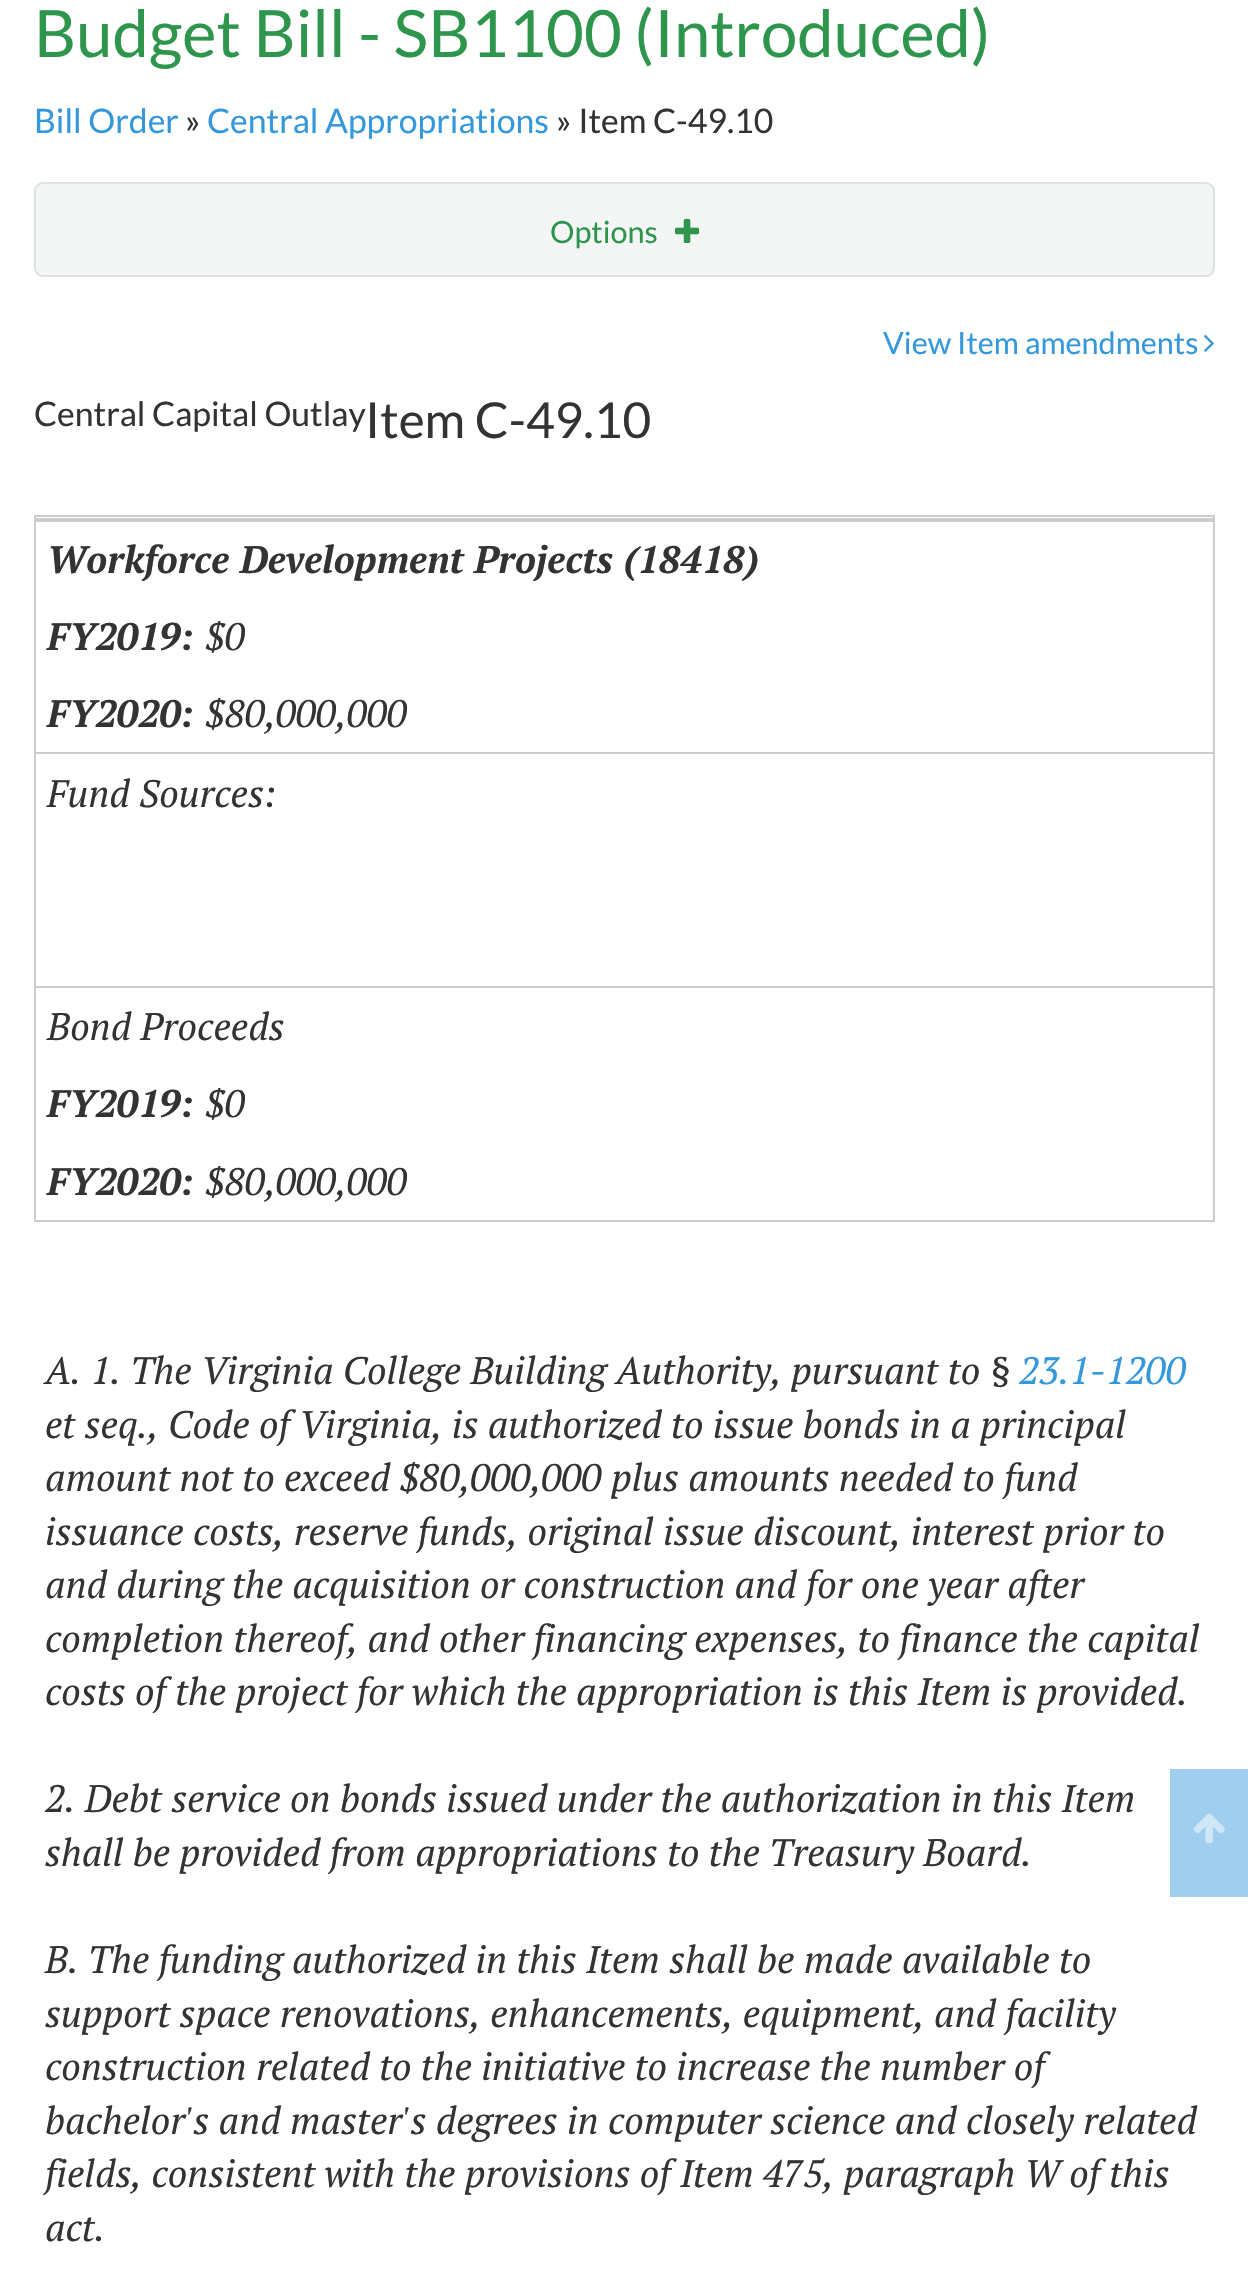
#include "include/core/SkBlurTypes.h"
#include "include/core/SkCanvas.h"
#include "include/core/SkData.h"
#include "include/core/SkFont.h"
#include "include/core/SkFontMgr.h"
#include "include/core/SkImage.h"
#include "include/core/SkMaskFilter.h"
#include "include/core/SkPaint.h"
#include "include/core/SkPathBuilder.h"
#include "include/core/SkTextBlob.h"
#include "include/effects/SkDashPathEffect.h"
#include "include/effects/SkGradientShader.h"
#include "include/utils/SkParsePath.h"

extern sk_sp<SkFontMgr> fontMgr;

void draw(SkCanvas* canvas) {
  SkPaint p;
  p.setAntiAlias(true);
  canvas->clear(SK_ColorWHITE);
  p.setColor(SkColorSetRGB(244, 245, 245));
  canvas->drawRoundRect(SkRect::MakeLTRB(35, 183, 1214, 276), 8, 8, p);
  p.setStyle(SkPaint::kStroke_Style);
  p.setStrokeWidth(2);
  p.setColor(SkColorSetRGB(222, 226, 227));
  canvas->drawRoundRect(SkRect::MakeLTRB(35, 183, 1214, 276), 8, 8, p);
  canvas->drawImageRect(SkImages::DeferredFromEncodedData(SkData::MakeFromFileName("images/1.png")), SkRect::MakeLTRB(675, 218, 700, 243), SkSamplingOptions());
  canvas->drawImageRect(SkImages::DeferredFromEncodedData(SkData::MakeFromFileName("images/2.png")), SkRect::MakeLTRB(1204, 334, 1214, 352), SkSamplingOptions());
  p.setStyle(SkPaint::kFill_Style);
  p.setColor(SkColorSetRGB(204, 204, 204));
  canvas->drawRect(SkRect::MakeLTRB(34, 515, 1215, 517), p);
  canvas->drawRect(SkRect::MakeLTRB(1213, 515, 1215, 1222), p);
  canvas->drawRect(SkRect::MakeLTRB(34, 515, 36, 1222), p);
  canvas->drawRect(SkRect::MakeLTRB(36, 518, 1213, 522), p);
  canvas->drawRect(SkRect::MakeLTRB(36, 752, 1213, 754), p);
  canvas->drawRect(SkRect::MakeLTRB(36, 986, 1213, 988), p);
  canvas->drawRect(SkRect::MakeLTRB(36, 1220, 1213, 1222), p);
  p.setColor(SkColorSetRGB(159, 206, 238));
  canvas->drawRect(SkRect::MakeLTRB(1170, 1769, 1248, 1897), p);
  canvas->drawImageRect(SkImages::DeferredFromEncodedData(SkData::MakeFromFileName("images/3.png")), SkRect::MakeLTRB(1193, 1813, 1225, 1843), SkSamplingOptions());
  SkFont font1(fontMgr->matchFamilyStyle("Lato", SkFontStyle::Normal()), 65.25f);
  font1.setSubpixel(true);
  p.setColor(SkColorSetRGB(46, 149, 76));
  canvas->drawString("Budget Bill - SB1100 (Introduced)", 34, 57, font1, p);
  SkFont font2(fontMgr->matchFamilyStyle("Lato", SkFontStyle::Normal()), 33.75f);
  font2.setSubpixel(true);
  p.setColor(SkColorSetRGB(52, 152, 219));
  canvas->drawString("Bill Order", 34, 133, font2, p);
  p.setColor(SkColorSetRGB(51, 51, 51));
  canvas->drawString("»", 185, 133, font2, p);
  p.setColor(SkColorSetRGB(52, 152, 219));
  canvas->drawString("Central Appropriations", 207, 133, font2, p);
  p.setColor(SkColorSetRGB(51, 51, 51));
  canvas->drawString("» Item C-49.10", 556, 133, font2, p);
  SkFont font3(fontMgr->matchFamilyStyle("Lato", SkFontStyle::Normal()), 30.6f);
  font3.setSubpixel(true);
  p.setColor(SkColorSetRGB(46, 149, 76));
  canvas->drawString("Options", 550, 243, font3, p);
  p.setColor(SkColorSetRGB(52, 152, 219));
  canvas->drawString("View Item amendments", 883, 354, font3, p);
  p.setColor(SkColorSetRGB(51, 51, 51));
  canvas->drawString("Central Capital Outlay", 34, 426, font2, p);
  SkFont font4(fontMgr->matchFamilyStyle("Lato", SkFontStyle::Normal()), 49.5f);
  font4.setSubpixel(true);
  canvas->drawString("Item C-49.10", 365, 438, font4, p);
  SkFont font5(fontMgr->matchFamilyStyle("PT Serif", SkFontStyle::BoldItalic()), 38.25f);
  font5.setSubpixel(true);
  canvas->drawString("Workforce Development Projects (18418)", 47, 573, font5, p);
  canvas->drawString("FY2019:", 47, 650, font5, p);
  SkFont font6(fontMgr->matchFamilyStyle("PT Serif", SkFontStyle::Italic()), 38.25f);
  font6.setSubpixel(true);
  canvas->drawString("$0", 205, 650, font6, p);
  canvas->drawString("FY2020:", 47, 727, font5, p);
  canvas->drawString("$80,000,000", 205, 727, font6, p);
  canvas->drawString("Fund Sources:", 47, 807, font6, p);
  canvas->drawString("Bond Proceeds", 47, 1040, font6, p);
  canvas->drawString("FY2019:", 47, 1117, font5, p);
  canvas->drawString("$0", 205, 1117, font6, p);
  canvas->drawString("FY2020:", 47, 1195, font5, p);
  canvas->drawString("$80,000,000", 205, 1195, font6, p);
  canvas->drawString("A. 1. The Virginia College Building Authority, pursuant to §", 45, 1384, font6, p);
  p.setColor(SkColorSetRGB(52, 152, 219));
  canvas->drawString("23.1-1200", 1019, 1384, font6, p);
  p.setColor(SkColorSetRGB(51, 51, 51));
  canvas->drawString("et seq., Code of Virginia, is authorized to issue bonds in a principal", 45, 1438, font6, p);
  canvas->drawString("amount not to exceed $80,000,000 plus amounts needed to fund", 45, 1491, font6, p);
  canvas->drawString("issuance costs, reserve funds, original issue discount, interest prior to", 45, 1545, font6, p);
  canvas->drawString("and during the acquisition or construction and for one year after", 45, 1598, font6, p);
  canvas->drawString("completion thereof, and other financing expenses, to finance the capital", 45, 1652, font6, p);
  canvas->drawString("costs of the project for which the appropriation is this Item is provided.", 45, 1705, font6, p);
  canvas->drawString("2. Debt service on bonds issued under the authorization in this Item", 45, 1812, font6, p);
  canvas->drawString("shall be provided from appropriations to the Treasury Board.", 45, 1866, font6, p);
  canvas->drawString("B. The funding authorized in this Item shall be made available to", 45, 1973, font6, p);
  canvas->drawString("support space renovations, enhancements, equipment, and facility", 45, 2027, font6, p);
  canvas->drawString("construction related to the initiative to increase the number of", 45, 2080, font6, p);
  canvas->drawString("bachelor's and master's degrees in computer science and closely related", 45, 2134, font6, p);
  canvas->drawString("fields, consistent with the provisions of Item 475, paragraph W of this", 45, 2187, font6, p);
  canvas->drawString("act.", 45, 2241, font6, p);
}
